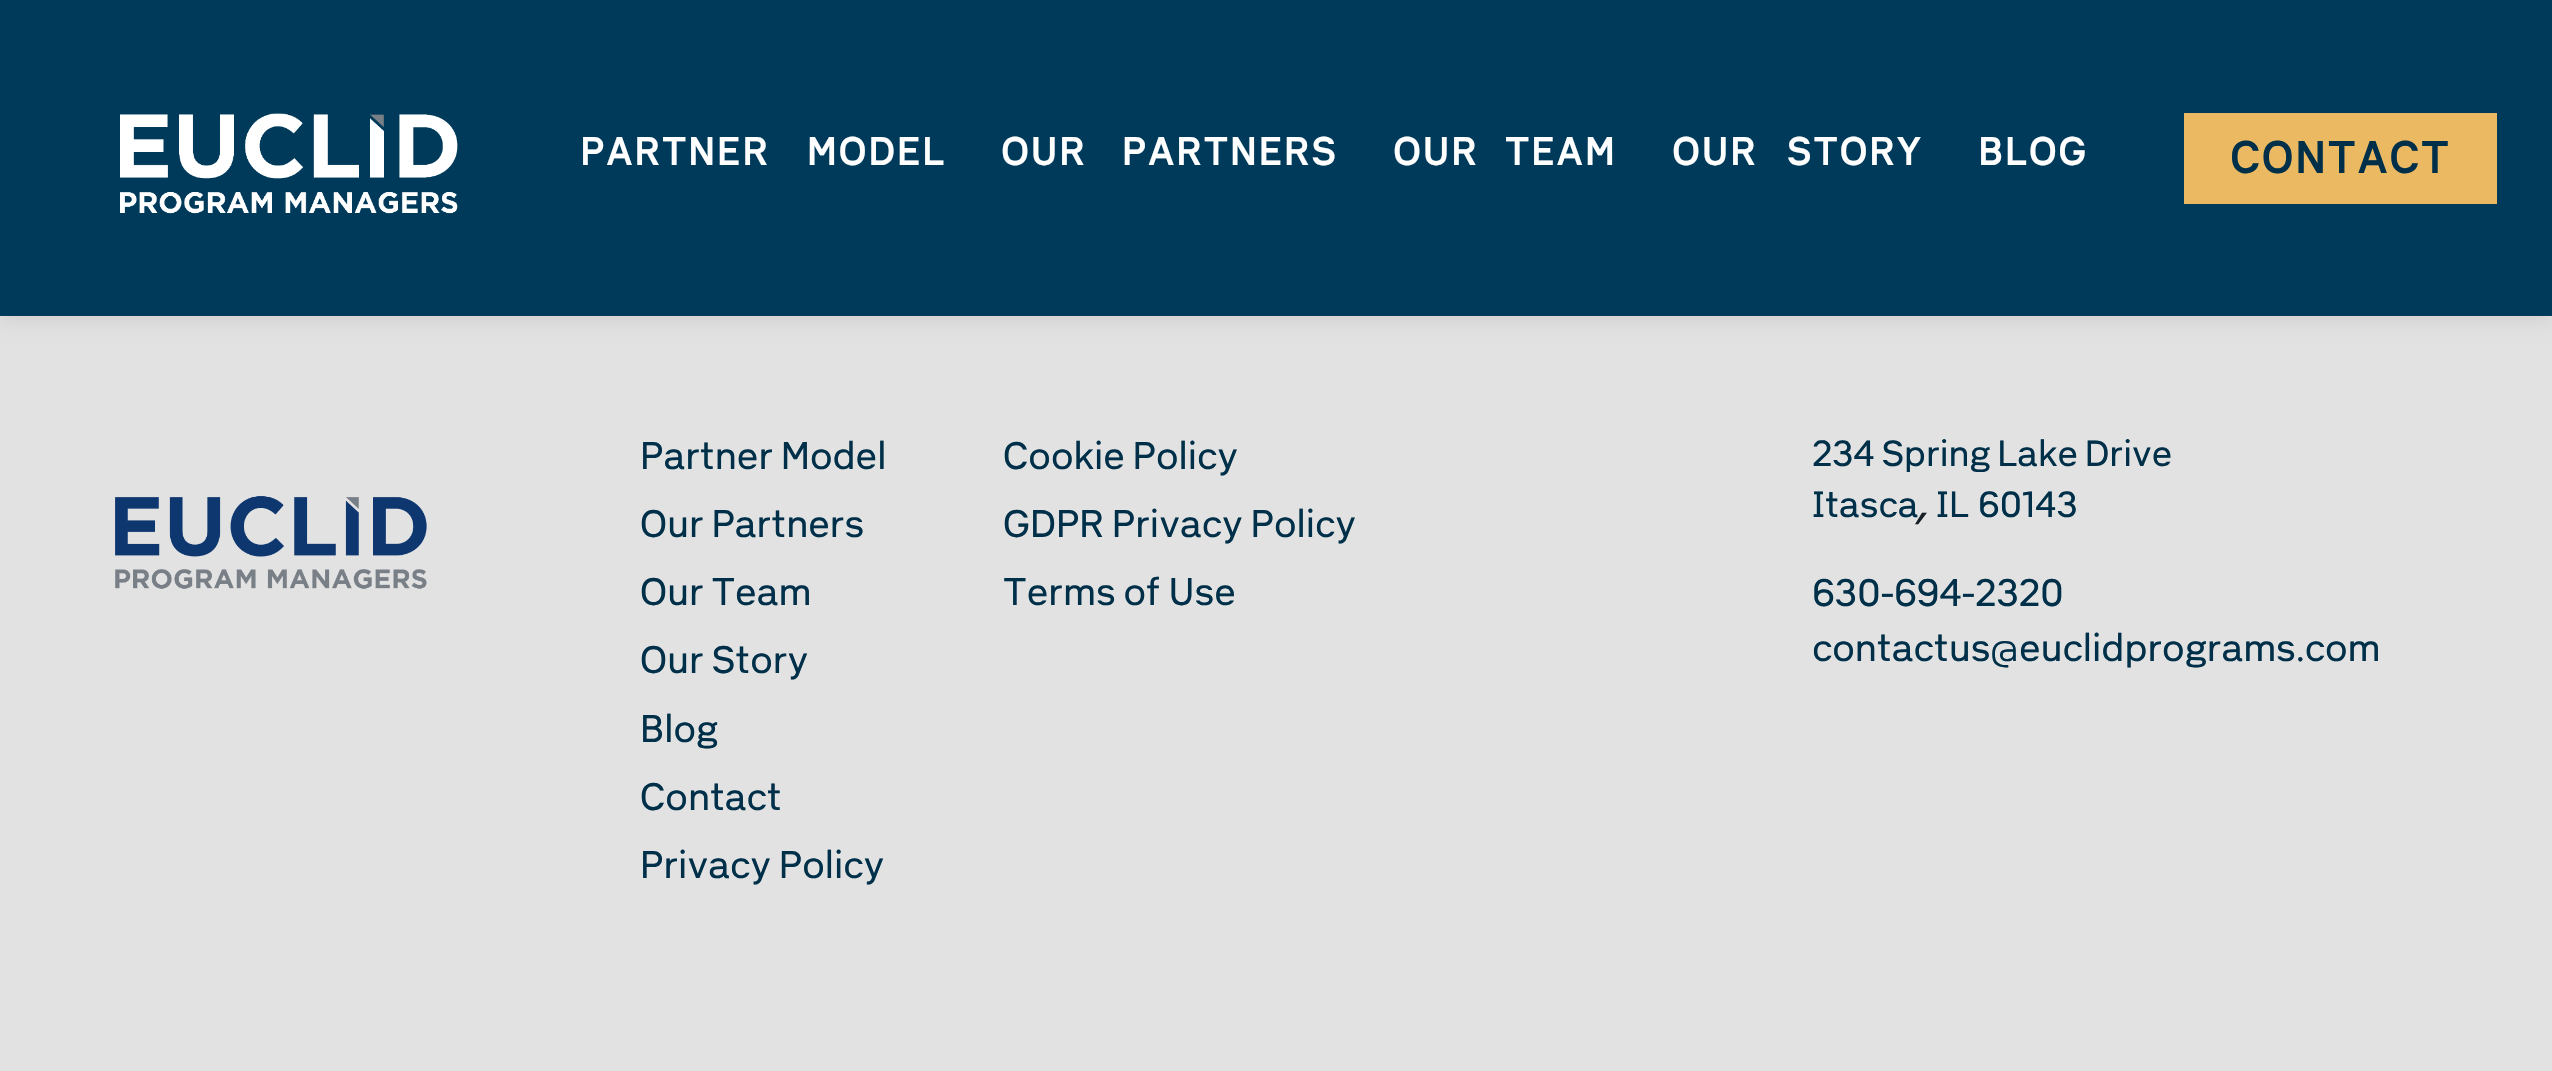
#include "include/core/SkBlurTypes.h"
#include "include/core/SkCanvas.h"
#include "include/core/SkData.h"
#include "include/core/SkFont.h"
#include "include/core/SkFontMgr.h"
#include "include/core/SkImage.h"
#include "include/core/SkMaskFilter.h"
#include "include/core/SkPaint.h"
#include "include/core/SkPathBuilder.h"
#include "include/core/SkTextBlob.h"
#include "include/effects/SkDashPathEffect.h"
#include "include/effects/SkGradientShader.h"
#include "include/utils/SkParsePath.h"

extern sk_sp<SkFontMgr> fontMgr;

void draw(SkCanvas* canvas) {
  SkPaint p;
  p.setAntiAlias(true);
  auto spacedText = [&](const char* s, float x, float y, const SkFont& font, const SkPaint& ink, float letter, float word) {
    std::vector<SkGlyphID> glyphs(font.countText(s, strlen(s), SkTextEncoding::kUTF8));
    std::vector<float> xs(glyphs.size());
    font.textToGlyphs(s, strlen(s), SkTextEncoding::kUTF8, glyphs);
    font.getXPos(glyphs, xs, x);
    float extra = 0;
    for (size_t i = 0; i < glyphs.size(); i++) {
      xs[i] += extra;
      extra += letter + word * (glyphs[i] == font.unicharToGlyph(' '));
    }
    canvas->drawTextBlob(SkTextBlob::MakeFromPosHGlyphs(glyphs, xs, y, font), 0, 0, ink);
  };
  canvas->clear(SkColorSetRGB(226, 226, 226));
  p.setColor(SkColorSetARGB(18, 0, 0, 0));
  p.setMaskFilter(SkMaskFilter::MakeBlur(kNormal_SkBlurStyle, 8));
  canvas->drawRect(SkRect::MakeLTRB(0, 6, 2552, 322), p);
  p.setMaskFilter(nullptr);
  p.setColor(SkColorSetRGB(0, 58, 90));
  canvas->drawRect(SkRect::MakeLTRB(0, 0, 2552, 316), p);
  canvas->drawImageRect(SkImages::DeferredFromEncodedData(SkData::MakeFromFileName("images/1.png")), SkRect::MakeLTRB(120, 113, 458, 214), SkSamplingOptions());
  p.setColor(SkColorSetRGB(234, 185, 97));
  canvas->drawRect(SkRect::MakeLTRB(2184, 113, 2497, 204), p);
  canvas->drawImageRect(SkImages::DeferredFromEncodedData(SkData::MakeFromFileName("images/2.png")), SkRect::MakeLTRB(115, 496, 427, 589), SkSamplingOptions());
  SkFont font1(fontMgr->matchFamilyStyle("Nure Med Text", SkFontStyle::Bold()), 38.5f);
  font1.setSubpixel(true);
  p.setColor(SK_ColorWHITE);
  spacedText("PARTNER MODEL", 580, 165, font1, p, 2.6f, 27);
  spacedText("OUR PARTNERS", 1001, 165, font1, p, 2.6f, 25);
  spacedText("OUR TEAM", 1393, 165, font1, p, 2.6f, 16);
  spacedText("OUR STORY", 1672, 165, font1, p, 2.6f, 19);
  spacedText("BLOG", 1978, 165, font1, p, 2.6f, 0);
  SkFont font2(fontMgr->matchFamilyStyle("Nure Med Text", SkFontStyle::Bold()), 44);
  font2.setSubpixel(true);
  p.setColor(SkColorSetRGB(0, 48, 73));
  spacedText("CONTACT", 2230, 173, font2, p, 2.6f, 0);
  SkFont font3(fontMgr->matchFamilyStyle("Nure Med Text", SkFontStyle::Normal()), 38.5f);
  font3.setSubpixel(true);
  canvas->drawString("Partner Model", 640, 469, font3, p);
  canvas->drawString("Cookie Policy", 1003, 469, font3, p);
  canvas->drawString("Our Partners", 640, 537, font3, p);
  canvas->drawString("GDPR Privacy Policy", 1003, 537, font3, p);
  canvas->drawString("Our Team", 640, 605, font3, p);
  canvas->drawString("Terms of Use", 1003, 605, font3, p);
  canvas->drawString("Our Story", 640, 673, font3, p);
  canvas->drawString("Blog", 640, 742, font3, p);
  canvas->drawString("Contact", 640, 810, font3, p);
  canvas->drawString("Privacy Policy", 640, 878, font3, p);
  SkFont font4(fontMgr->matchFamilyStyle("Nure Med Text", SkFontStyle::Normal()), 36.5f);
  font4.setSubpixel(true);
  spacedText("234 Spring Lake Drive", 1812, 466, font4, p, 0, -0.5f);
  canvas->drawString("Itasca", 1812, 517, font4, p);
  SkFont font5(fontMgr->matchFamilyStyle("Nure Med Text", SkFontStyle::Italic()), 44);
  font5.setSubpixel(true);
  p.setColor(SkColorSetRGB(23, 31, 38));
  canvas->drawString(",", 1918, 517, font5, p);
  p.setColor(SkColorSetRGB(0, 48, 73));
  canvas->drawString("IL", 1936, 517, font4, p);
  canvas->drawString("60143", 1978, 517, font4, p);
  canvas->drawString("630-694-2320", 1812, 606, font3, p);
  canvas->drawString("contactus@euclidprograms.com", 1812, 661, font3, p);
}
